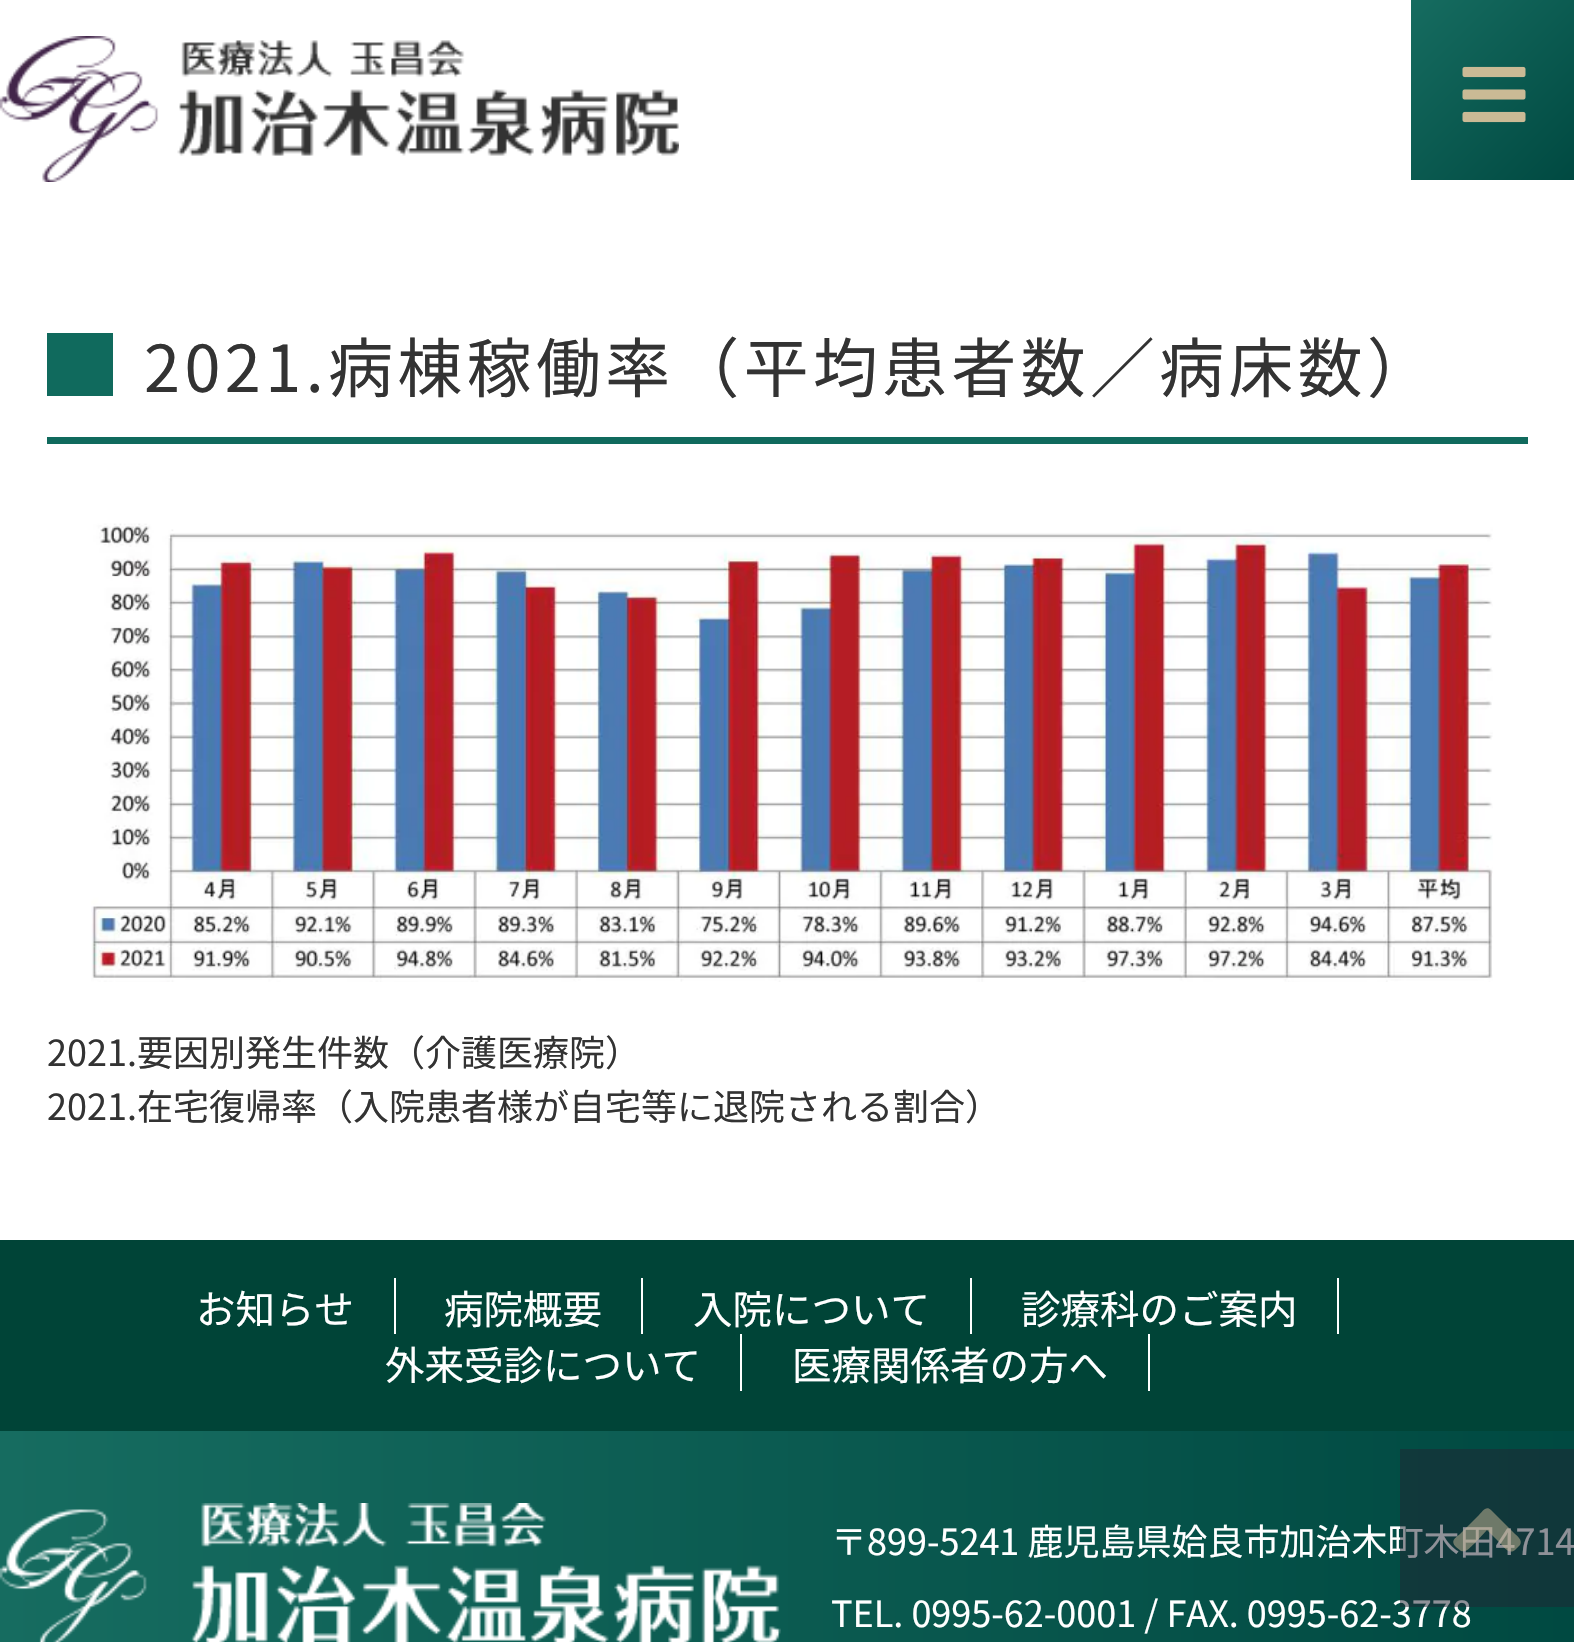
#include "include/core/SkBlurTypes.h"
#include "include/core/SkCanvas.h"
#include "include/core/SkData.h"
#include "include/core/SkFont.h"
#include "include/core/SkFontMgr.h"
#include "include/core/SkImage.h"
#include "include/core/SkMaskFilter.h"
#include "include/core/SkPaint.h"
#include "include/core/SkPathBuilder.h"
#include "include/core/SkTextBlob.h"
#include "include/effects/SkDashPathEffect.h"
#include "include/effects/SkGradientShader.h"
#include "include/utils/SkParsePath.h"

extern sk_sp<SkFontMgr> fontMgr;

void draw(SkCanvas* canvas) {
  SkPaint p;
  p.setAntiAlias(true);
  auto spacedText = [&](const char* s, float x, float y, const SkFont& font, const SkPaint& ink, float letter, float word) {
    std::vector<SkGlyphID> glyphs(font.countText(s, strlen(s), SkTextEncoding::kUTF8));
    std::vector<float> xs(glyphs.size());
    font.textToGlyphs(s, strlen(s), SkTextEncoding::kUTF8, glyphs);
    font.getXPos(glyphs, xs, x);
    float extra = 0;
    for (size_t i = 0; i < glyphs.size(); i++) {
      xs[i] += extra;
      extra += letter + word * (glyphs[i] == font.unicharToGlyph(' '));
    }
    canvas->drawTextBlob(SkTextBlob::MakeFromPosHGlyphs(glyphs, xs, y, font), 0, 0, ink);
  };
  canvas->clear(SkColorSetRGB(0, 68, 55));
  p.setColor(SK_ColorWHITE);
  canvas->drawRect(SkRect::MakeLTRB(0, 0, 1574, 1240), p);
  canvas->drawImageRect(SkImages::DeferredFromEncodedData(SkData::MakeFromFileName("images/1.png")), SkRect::MakeLTRB(0, 36, 679, 182), SkSamplingOptions());
  {
    const SkColor colors[] = {SkColorSetRGB(22, 108, 96), SkColorSetRGB(0, 73, 65)};
    const float stops[] = {0, 1};
    const SkPoint ends[] = {{1407, 3.9f}, {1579, 176}};
    p.setShader(SkGradientShader::MakeLinear(ends, colors, stops, 2, SkTileMode::kClamp));
    p.setAlpha(255);
  }
  canvas->drawRect(SkRect::MakeLTRB(1411, 0, 1574, 180), p);
  canvas->drawImageRect(SkImages::DeferredFromEncodedData(SkData::MakeFromFileName("images/2.png")), SkRect::MakeLTRB(1462, 66, 1526, 123), SkSamplingOptions());
  p.setShader(nullptr);
  p.setColor(SkColorSetRGB(16, 106, 93));
  canvas->drawRect(SkRect::MakeLTRB(47, 437, 1528, 444), p);
  canvas->drawRect(SkRect::MakeLTRB(47, 333, 113, 396), p);
  canvas->drawImageRect(SkImages::DeferredFromEncodedData(SkData::MakeFromFileName("images/3.png")), SkRect::MakeLTRB(91, 523, 1493, 982), SkSamplingOptions());
  p.setColor(SK_ColorWHITE);
  canvas->drawRect(SkRect::MakeLTRB(394, 1278, 396, 1334), p);
  canvas->drawRect(SkRect::MakeLTRB(641, 1278, 643, 1334), p);
  canvas->drawRect(SkRect::MakeLTRB(970, 1278, 972, 1334), p);
  canvas->drawRect(SkRect::MakeLTRB(1337, 1278, 1339, 1334), p);
  canvas->drawRect(SkRect::MakeLTRB(740, 1334, 742, 1391), p);
  canvas->drawRect(SkRect::MakeLTRB(1148, 1334, 1150, 1391), p);
  {
    const SkColor colors[] = {SkColorSetRGB(22, 108, 96), SkColorSetRGB(0, 73, 65)};
    const float stops[] = {0, 1};
    const SkPoint ends[] = {{0, 1611}, {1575, 1611}};
    p.setShader(SkGradientShader::MakeLinear(ends, colors, stops, 2, SkTileMode::kClamp));
    p.setAlpha(255);
  }
  canvas->drawRect(SkRect::MakeLTRB(0, 1431, 1574, 1642), p);
  canvas->drawImageRect(SkImages::DeferredFromEncodedData(SkData::MakeFromFileName("images/4.png")), SkRect::MakeLTRB(0, 1503, 781, 1642), SkSamplingOptions());
  SkFont font1(fontMgr->matchFamilyStyle("Noto Sans JP", SkFontStyle(100, SkFontStyle::kNormal_Width, SkFontStyle::kUpright_Slant)), 64.75f);
  font1.setSubpixel(true);
  p.setShader(nullptr);
  p.setColor(SkColorSetRGB(51, 51, 51));
  spacedText("2021.病棟稼働率（平均患者数／病床数）", 144, 392, font1, p, 4.5f, 0);
  SkFont font2(fontMgr->matchFamilyStyle("Noto Sans JP", SkFontStyle(100, SkFontStyle::kNormal_Width, SkFontStyle::kUpright_Slant)), 36);
  font2.setSubpixel(true);
  canvas->drawString("2021.要因別発生件数（介護医療院）", 47, 1066, font2, p);
  canvas->drawString("2021.在宅復帰率（入院患者様が自宅等に退院される割合）", 47, 1120, font2, p);
  SkFont font3(fontMgr->matchFamilyStyle("Noto Sans JP", SkFontStyle(100, SkFontStyle::kNormal_Width, SkFontStyle::kUpright_Slant)), 39.5f);
  font3.setSubpixel(true);
  p.setColor(SK_ColorWHITE);
  canvas->drawString("お知らせ", 196, 1324, font3, p);
  canvas->drawString("病院概要", 444, 1324, font3, p);
  canvas->drawString("入院について", 693, 1324, font3, p);
  canvas->drawString("診療科のご案内", 1021, 1324, font3, p);
  canvas->drawString("外来受診について", 385, 1380, font3, p);
  canvas->drawString("医療関係者の方へ", 792, 1380, font3, p);
  canvas->drawString("〒899-5241 鹿児島県姶良市加治木町木田4714", 831, 1555, font2, p);
  canvas->drawString("TEL. 0995-62-0001 / FAX. 0995-62-3778", 831, 1627, font2, p);
  p.setColor(SkColorSetARGB(128, 32, 36, 50));
  canvas->drawRect(SkRect::MakeLTRB(1400, 1449, 1574, 1607), p);
  p.setColor(SkColorSetARGB(128, 202, 186, 149));
  canvas->drawPath(SkPathBuilder().moveTo(1491, 1510).lineTo(1515, 1534).cubicTo(1517, 1536, 1523, 1540, 1520, 1545).lineTo(1515, 1550).cubicTo(1509, 1555, 1504, 1547, 1501, 1544).lineTo(1487, 1530).lineTo(1474, 1544).cubicTo(1471, 1546, 1467, 1553, 1461, 1551).lineTo(1456, 1547).cubicTo(1450, 1541, 1455, 1538, 1460, 1534).lineTo(1479, 1515).cubicTo(1482, 1512, 1486, 1505, 1491, 1510).close().detach(), p);
}
